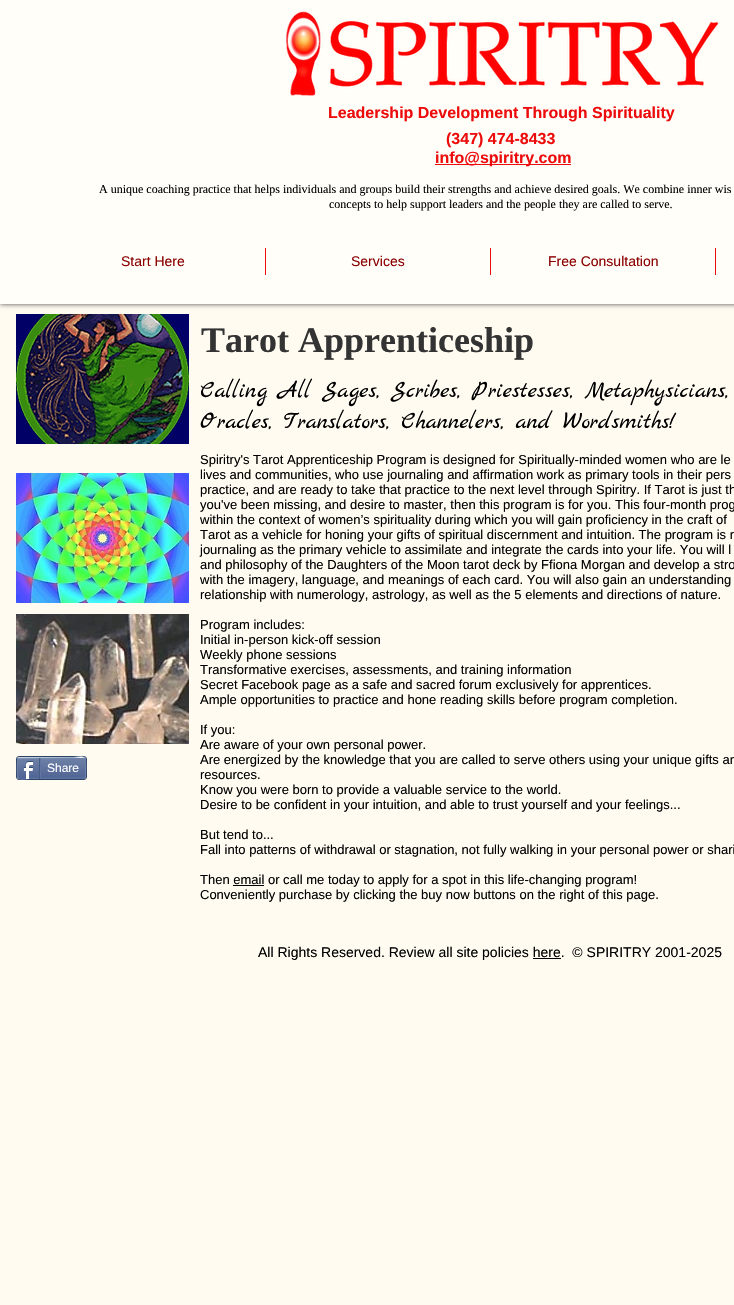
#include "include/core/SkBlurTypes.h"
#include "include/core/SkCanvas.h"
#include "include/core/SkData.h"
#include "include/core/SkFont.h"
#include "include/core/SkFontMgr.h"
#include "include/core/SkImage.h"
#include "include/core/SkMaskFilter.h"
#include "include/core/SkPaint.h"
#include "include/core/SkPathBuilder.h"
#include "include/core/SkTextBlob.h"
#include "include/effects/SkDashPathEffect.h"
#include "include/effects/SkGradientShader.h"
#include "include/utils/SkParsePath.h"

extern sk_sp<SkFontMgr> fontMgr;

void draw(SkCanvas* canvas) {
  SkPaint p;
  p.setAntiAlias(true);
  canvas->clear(SkColorSetRGB(255, 251, 241));
  p.setColor(SkColorSetARGB(179, 0, 0, 0));
  p.setMaskFilter(SkMaskFilter::MakeBlur(kNormal_SkBlurStyle, 2.5f));
  canvas->drawRect(SkRect::MakeLTRB(0, 0, 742, 304), p);
  p.setMaskFilter(nullptr);
  p.setColor(SkColorSetRGB(255, 254, 249));
  canvas->drawRect(SkRect::MakeLTRB(0, 0, 734, 304), p);
  canvas->drawImageRect(SkImages::DeferredFromEncodedData(SkData::MakeFromFileName("images/1.png")), SkRect::MakeLTRB(286, 11, 719, 96), SkSamplingOptions());
  p.setColor(SkColorSetRGB(237, 12, 12));
  canvas->drawRect(SkRect::MakeLTRB(435, 164, 571, 165), p);
  canvas->drawRect(SkRect::MakeLTRB(265, 248, 266, 275), p);
  canvas->drawRect(SkRect::MakeLTRB(490, 248, 491, 275), p);
  canvas->drawRect(SkRect::MakeLTRB(715, 248, 716, 275), p);
  canvas->drawImageRect(SkImages::DeferredFromEncodedData(SkData::MakeFromFileName("images/2.png")), SkRect::MakeLTRB(16, 314, 189, 444), SkSamplingOptions());
  canvas->drawImageRect(SkImages::DeferredFromEncodedData(SkData::MakeFromFileName("images/3.png")), SkRect::MakeLTRB(16, 473, 189, 603), SkSamplingOptions());
  p.setColor(SK_ColorBLACK);
  canvas->drawRect(SkRect::MakeLTRB(233, 885, 264, 886), p);
  canvas->drawImageRect(SkImages::DeferredFromEncodedData(SkData::MakeFromFileName("images/4.png")), SkRect::MakeLTRB(16, 614, 189, 744), SkSamplingOptions());
  p.setStyle(SkPaint::kStroke_Style);
  p.setStrokeWidth(1);
  p.setColor(SkColorSetRGB(45, 69, 101));
  canvas->drawRoundRect(SkRect::MakeLTRB(16.5f, 756.5f, 86.5f, 779.5f), 2.5f, 2.5f, p);
  canvas->drawImageRect(SkImages::DeferredFromEncodedData(SkData::MakeFromFileName("images/5.png")), SkRect::MakeLTRB(17, 758, 86, 779), SkSamplingOptions());
  p.setColor(SkColorSetRGB(154, 171, 198));
  canvas->drawPath(SkPathBuilder().moveTo(18, 758).lineTo(73, 757.5f).cubicTo(77, 757.5f, 82, 755, 85, 758).detach(), p);
  p.setColor(SkColorSetRGB(111, 131, 173));
  canvas->drawPath(SkPathBuilder().moveTo(85, 758).cubicTo(86, 758.5f, 86, 777.5f, 85, 778).detach(), p);
  p.setColor(SkColorSetRGB(97, 118, 163));
  canvas->drawPath(SkPathBuilder().moveTo(85, 778).lineTo(30, 778.5f).cubicTo(26, 778.5f, 21, 781, 18, 778).detach(), p);
  p.setColor(SkColorSetRGB(111, 131, 173));
  canvas->drawPath(SkPathBuilder().moveTo(18, 778).cubicTo(17, 777.5f, 17, 758.5f, 18, 758).detach(), p);
  canvas->drawImageRect(SkImages::DeferredFromEncodedData(SkData::MakeFromFileName("images/6.png")), SkRect::MakeLTRB(23, 761, 33, 779), SkSamplingOptions());
  p.setStyle(SkPaint::kFill_Style);
  p.setColor(SkColorSetRGB(66, 94, 133));
  canvas->drawRect(SkRect::MakeLTRB(39, 758, 40, 779), p);
  p.setColor(SkColorSetRGB(97, 118, 163));
  canvas->drawRect(SkRect::MakeLTRB(40, 758, 41, 778), p);
  p.setColor(SK_ColorBLACK);
  canvas->drawRect(SkRect::MakeLTRB(533, 958, 561, 959), p);
  SkFont font1(fontMgr->matchFamilyStyle("Liberation Sans", SkFontStyle::Bold()), 16);
  font1.setSubpixel(true);
  p.setColor(SkColorSetRGB(237, 12, 12));
  canvas->drawString("Leadership Development Through Spirituality", 328, 118, font1, p);
  canvas->drawString("(347) 474-8433", 446, 144, font1, p);
  canvas->drawString("info@spiritry.com", 435, 163, font1, p);
  SkFont font2(fontMgr->matchFamilyStyle("Liberation Serif", SkFontStyle::Normal()), 12);
  font2.setSubpixel(true);
  p.setColor(SK_ColorBLACK);
  canvas->drawString("A unique coaching practice that helps individuals and groups build their strengths and achieve desired goals. We combine inner wis", 99, 193, font2, p);
  canvas->drawString("concepts to help support leaders and the people they are called to serve.", 329, 208, font2, p);
  SkFont font3(fontMgr->matchFamilyStyle("Liberation Sans", SkFontStyle::Normal()), 14);
  font3.setSubpixel(true);
  p.setColor(SkColorSetRGB(139, 0, 0));
  canvas->drawString("Start Here", 121, 266, font3, p);
  canvas->drawString("Services", 351, 266, font3, p);
  canvas->drawString("Free Consultation", 548, 266, font3, p);
  SkFont font4(fontMgr->matchFamilyStyle("Liberation Serif", SkFontStyle::Bold()), 36);
  font4.setSubpixel(true);
  p.setColor(SkColorSetRGB(51, 51, 51));
  canvas->drawString("Tarot Apprenticeship", 201, 352, font4, p);
  SkFont font5(fontMgr->matchFamilyStyle("Marck Script", SkFontStyle::Normal()), 24);
  font5.setSubpixel(true);
  p.setColor(SK_ColorBLACK);
  canvas->drawString("Calling All Sages, Scribes, Priestesses, Metaphysicians,", 200, 397, font5, p);
  canvas->drawString("Oracles, Translators, Channelers, and Wordsmiths!", 200, 428, font5, p);
  SkFont font6(fontMgr->matchFamilyStyle("Liberation Sans", SkFontStyle::Normal()), 13);
  font6.setSubpixel(true);
  canvas->drawString("Spiritry's Tarot Apprenticeship Program is designed for Spiritually-minded women who are le", 200, 464, font6, p);
  canvas->drawString("lives and communities, who use journaling and affirmation work as primary tools in their pers", 200, 479, font6, p);
  canvas->drawString("practice, and are ready to take that practice to the next level through Spiritry. If Tarot is just th", 200, 494, font6, p);
  canvas->drawString("you've been missing, and desire to master, then this program is for you. This four-month prog", 200, 509, font6, p);
  canvas->drawString("within the context of women’s spirituality during which you will gain proficiency in the craft of", 200, 524, font6, p);
  canvas->drawString("Tarot as a vehicle for honing your gifts of spiritual discernment and intuition. The program is r", 200, 539, font6, p);
  canvas->drawString("journaling as the primary vehicle to assimilate and integrate the cards into your life. You will l", 200, 554, font6, p);
  canvas->drawString("and philosophy of the Daughters of the Moon tarot deck by Ffiona Morgan and develop a stro", 200, 569, font6, p);
  canvas->drawString("with the imagery, language, and meanings of each card. You will also gain an understanding", 200, 584, font6, p);
  canvas->drawString("relationship with numerology, astrology, as well as the 5 elements and directions of nature.", 200, 599, font6, p);
  canvas->drawString("Program includes:", 200, 629, font6, p);
  canvas->drawString("Initial in-person kick-off session", 200, 644, font6, p);
  canvas->drawString("Weekly phone sessions", 200, 659, font6, p);
  canvas->drawString("Transformative exercises, assessments, and training information", 200, 674, font6, p);
  canvas->drawString("Secret Facebook page as a safe and sacred forum exclusively for apprentices.", 200, 689, font6, p);
  canvas->drawString("Ample opportunities to practice and hone reading skills before program completion.", 200, 704, font6, p);
  canvas->drawString("If you:", 200, 734, font6, p);
  canvas->drawString("Are aware of your own personal power.", 200, 749, font6, p);
  canvas->drawString("Are energized by the knowledge that you are called to serve others using your unique gifts an", 200, 764, font6, p);
  canvas->drawString("resources.", 200, 779, font6, p);
  canvas->drawString("Know you were born to provide a valuable service to the world.", 200, 794, font6, p);
  canvas->drawString("Desire to be confident in your intuition, and able to trust yourself and your feelings...", 200, 809, font6, p);
  canvas->drawString("But tend to...", 200, 839, font6, p);
  canvas->drawString("Fall into patterns of withdrawal or stagnation, not fully walking in your personal power or shari", 200, 854, font6, p);
  canvas->drawString("Then email or call me today to apply for a spot in this life-changing program!", 200, 884, font6, p);
  canvas->drawString("Conveniently purchase by clicking the buy now buttons on the right of this page.", 200, 899, font6, p);
  SkFont font7(fontMgr->matchFamilyStyle("Liberation Sans", SkFontStyle::Normal()), 12);
  font7.setSubpixel(true);
  p.setColor(SK_ColorWHITE);
  canvas->drawString("Share", 47, 772, font7, p);
  p.setColor(SK_ColorBLACK);
  canvas->drawString("All Rights Reserved. Review all site policies here.  © SPIRITRY 2001-2025", 258, 957, font3, p);
}
